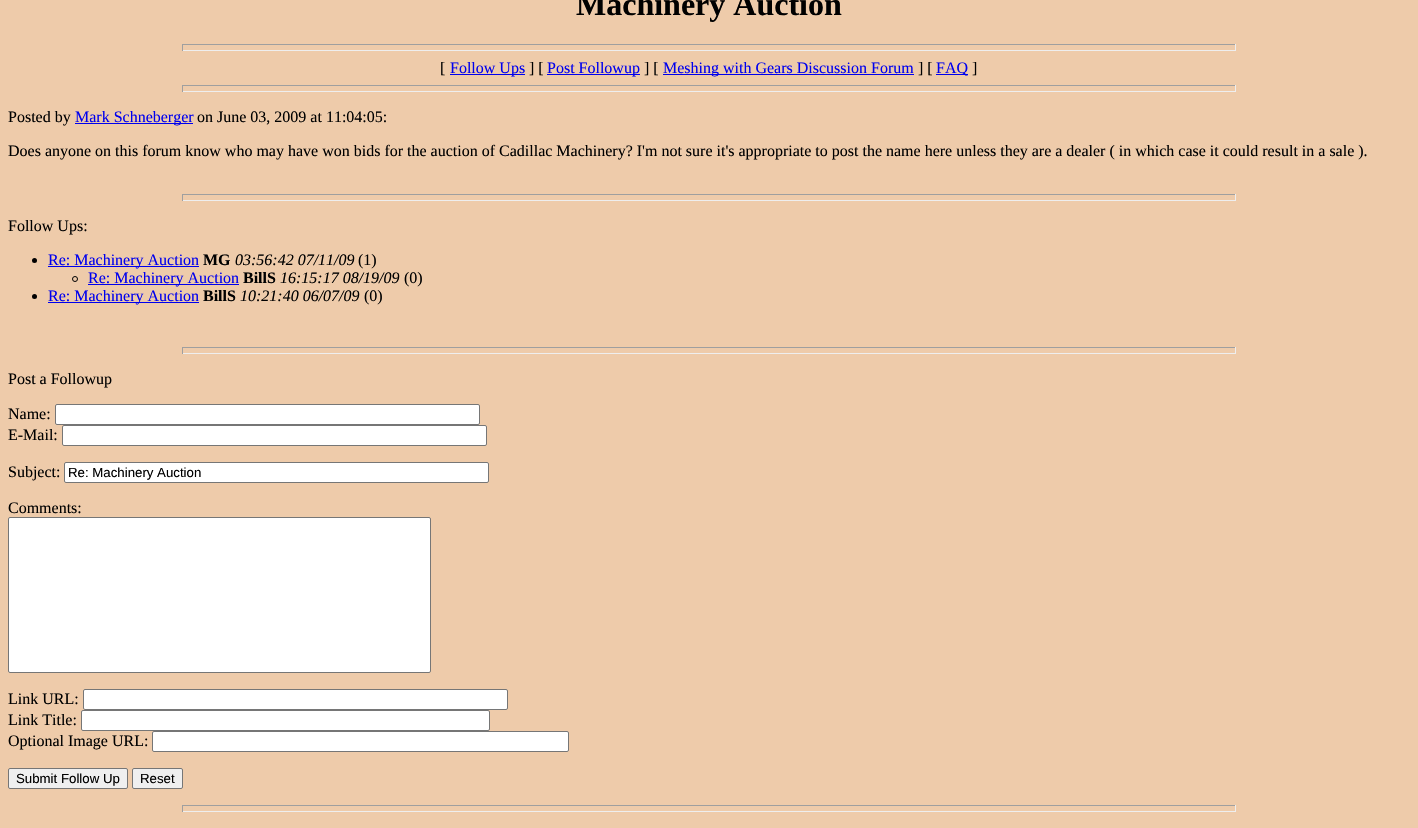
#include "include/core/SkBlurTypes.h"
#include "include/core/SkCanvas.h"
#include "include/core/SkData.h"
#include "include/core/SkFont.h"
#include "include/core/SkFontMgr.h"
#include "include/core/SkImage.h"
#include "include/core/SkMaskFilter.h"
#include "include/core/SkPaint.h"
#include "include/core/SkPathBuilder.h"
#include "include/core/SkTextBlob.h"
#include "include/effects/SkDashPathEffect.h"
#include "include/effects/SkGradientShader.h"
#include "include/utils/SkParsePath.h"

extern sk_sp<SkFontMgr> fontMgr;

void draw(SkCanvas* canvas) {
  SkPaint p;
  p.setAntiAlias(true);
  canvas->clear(SkColorSetRGB(238, 203, 170));
  p.setColor(SkColorSetRGB(159, 159, 159));
  canvas->drawRect(SkRect::MakeLTRB(182, 44, 1236, 45), p);
  p.setColor(SkColorSetRGB(238, 238, 238));
  canvas->drawRect(SkRect::MakeLTRB(1235, 44, 1236, 51), p);
  canvas->drawRect(SkRect::MakeLTRB(182, 50, 1236, 51), p);
  p.setColor(SkColorSetRGB(159, 159, 159));
  canvas->drawRect(SkRect::MakeLTRB(182, 44, 183, 51), p);
  p.setColor(SkColorSetRGB(0, 0, 238));
  canvas->drawRect(SkRect::MakeLTRB(450, 74, 525, 75), p);
  canvas->drawRect(SkRect::MakeLTRB(547, 74, 640, 75), p);
  canvas->drawRect(SkRect::MakeLTRB(663, 74, 914, 75), p);
  canvas->drawRect(SkRect::MakeLTRB(936, 74, 968, 75), p);
  p.setColor(SkColorSetRGB(159, 159, 159));
  canvas->drawRect(SkRect::MakeLTRB(182, 85, 1236, 86), p);
  p.setColor(SkColorSetRGB(238, 238, 238));
  canvas->drawRect(SkRect::MakeLTRB(1235, 85, 1236, 92), p);
  canvas->drawRect(SkRect::MakeLTRB(182, 91, 1236, 92), p);
  p.setColor(SkColorSetRGB(159, 159, 159));
  canvas->drawRect(SkRect::MakeLTRB(182, 85, 183, 92), p);
  p.setColor(SkColorSetRGB(0, 0, 238));
  canvas->drawRect(SkRect::MakeLTRB(75, 123, 193, 124), p);
  p.setColor(SkColorSetRGB(159, 159, 159));
  canvas->drawRect(SkRect::MakeLTRB(182, 194, 1236, 195), p);
  p.setColor(SkColorSetRGB(238, 238, 238));
  canvas->drawRect(SkRect::MakeLTRB(1235, 194, 1236, 201), p);
  canvas->drawRect(SkRect::MakeLTRB(182, 200, 1236, 201), p);
  p.setColor(SkColorSetRGB(159, 159, 159));
  canvas->drawRect(SkRect::MakeLTRB(182, 194, 183, 201), p);
  p.setColor(SK_ColorBLACK);
  canvas->drawCircle(34.5f, 260.5f, 2.5f, p);
  p.setColor(SkColorSetRGB(0, 0, 238));
  canvas->drawRect(SkRect::MakeLTRB(48, 266, 199, 267), p);
  p.setStyle(SkPaint::kStroke_Style);
  p.setStrokeWidth(1);
  p.setColor(SK_ColorBLACK);
  canvas->drawCircle(75, 279, 2.5f, p);
  p.setStyle(SkPaint::kFill_Style);
  p.setColor(SkColorSetRGB(0, 0, 238));
  canvas->drawRect(SkRect::MakeLTRB(88, 284, 239, 285), p);
  p.setColor(SK_ColorBLACK);
  canvas->drawCircle(34.5f, 296.5f, 2.5f, p);
  p.setColor(SkColorSetRGB(0, 0, 238));
  canvas->drawRect(SkRect::MakeLTRB(48, 302, 199, 303), p);
  p.setColor(SkColorSetRGB(159, 159, 159));
  canvas->drawRect(SkRect::MakeLTRB(182, 347, 1236, 348), p);
  p.setColor(SkColorSetRGB(238, 238, 238));
  canvas->drawRect(SkRect::MakeLTRB(1235, 347, 1236, 354), p);
  canvas->drawRect(SkRect::MakeLTRB(182, 353, 1236, 354), p);
  p.setColor(SkColorSetRGB(159, 159, 159));
  canvas->drawRect(SkRect::MakeLTRB(182, 347, 183, 354), p);
  p.setColor(SK_ColorWHITE);
  canvas->drawRoundRect(SkRect::MakeLTRB(55.5f, 404.5f, 479.5f, 424.5f), 1.5f, 1.5f, p);
  p.setStyle(SkPaint::kStroke_Style);
  p.setColor(SkColorSetRGB(118, 118, 118));
  canvas->drawRoundRect(SkRect::MakeLTRB(55.5f, 404.5f, 479.5f, 424.5f), 1.5f, 1.5f, p);
  p.setStyle(SkPaint::kFill_Style);
  p.setColor(SK_ColorWHITE);
  canvas->drawRoundRect(SkRect::MakeLTRB(62.5f, 425.5f, 486.5f, 445.5f), 1.5f, 1.5f, p);
  p.setStyle(SkPaint::kStroke_Style);
  p.setColor(SkColorSetRGB(118, 118, 118));
  canvas->drawRoundRect(SkRect::MakeLTRB(62.5f, 425.5f, 486.5f, 445.5f), 1.5f, 1.5f, p);
  p.setStyle(SkPaint::kFill_Style);
  p.setColor(SK_ColorWHITE);
  canvas->drawRoundRect(SkRect::MakeLTRB(64.5f, 462.5f, 488.5f, 482.5f), 1.5f, 1.5f, p);
  p.setStyle(SkPaint::kStroke_Style);
  p.setColor(SkColorSetRGB(118, 118, 118));
  canvas->drawRoundRect(SkRect::MakeLTRB(64.5f, 462.5f, 488.5f, 482.5f), 1.5f, 1.5f, p);
  p.setStyle(SkPaint::kFill_Style);
  p.setColor(SK_ColorWHITE);
  canvas->drawRoundRect(SkRect::MakeLTRB(8.5f, 517.5f, 430.5f, 672.5f), 1.5f, 1.5f, p);
  p.setStyle(SkPaint::kStroke_Style);
  p.setColor(SkColorSetRGB(118, 118, 118));
  canvas->drawRoundRect(SkRect::MakeLTRB(8.5f, 517.5f, 430.5f, 672.5f), 1.5f, 1.5f, p);
  p.setStyle(SkPaint::kFill_Style);
  p.setColor(SK_ColorWHITE);
  canvas->drawRoundRect(SkRect::MakeLTRB(83.5f, 689.5f, 507.5f, 709.5f), 1.5f, 1.5f, p);
  p.setStyle(SkPaint::kStroke_Style);
  p.setColor(SkColorSetRGB(118, 118, 118));
  canvas->drawRoundRect(SkRect::MakeLTRB(83.5f, 689.5f, 507.5f, 709.5f), 1.5f, 1.5f, p);
  p.setStyle(SkPaint::kFill_Style);
  p.setColor(SK_ColorWHITE);
  canvas->drawRoundRect(SkRect::MakeLTRB(81.5f, 710.5f, 489.5f, 730.5f), 1.5f, 1.5f, p);
  p.setStyle(SkPaint::kStroke_Style);
  p.setColor(SkColorSetRGB(118, 118, 118));
  canvas->drawRoundRect(SkRect::MakeLTRB(81.5f, 710.5f, 489.5f, 730.5f), 1.5f, 1.5f, p);
  p.setStyle(SkPaint::kFill_Style);
  p.setColor(SK_ColorWHITE);
  canvas->drawRoundRect(SkRect::MakeLTRB(152.5f, 731.5f, 568.5f, 751.5f), 1.5f, 1.5f, p);
  p.setStyle(SkPaint::kStroke_Style);
  p.setColor(SkColorSetRGB(118, 118, 118));
  canvas->drawRoundRect(SkRect::MakeLTRB(152.5f, 731.5f, 568.5f, 751.5f), 1.5f, 1.5f, p);
  p.setStyle(SkPaint::kFill_Style);
  p.setColor(SkColorSetRGB(239, 239, 239));
  canvas->drawRoundRect(SkRect::MakeLTRB(8.5f, 768.5f, 127.5f, 788.5f), 1.5f, 1.5f, p);
  p.setStyle(SkPaint::kStroke_Style);
  p.setColor(SkColorSetRGB(118, 118, 118));
  canvas->drawRoundRect(SkRect::MakeLTRB(8.5f, 768.5f, 127.5f, 788.5f), 1.5f, 1.5f, p);
  p.setStyle(SkPaint::kFill_Style);
  p.setColor(SkColorSetRGB(239, 239, 239));
  canvas->drawRoundRect(SkRect::MakeLTRB(132.5f, 768.5f, 182.5f, 788.5f), 1.5f, 1.5f, p);
  p.setStyle(SkPaint::kStroke_Style);
  p.setColor(SkColorSetRGB(118, 118, 118));
  canvas->drawRoundRect(SkRect::MakeLTRB(132.5f, 768.5f, 182.5f, 788.5f), 1.5f, 1.5f, p);
  p.setStyle(SkPaint::kFill_Style);
  p.setColor(SkColorSetRGB(159, 159, 159));
  canvas->drawRect(SkRect::MakeLTRB(182, 805, 1236, 806), p);
  p.setColor(SkColorSetRGB(238, 238, 238));
  canvas->drawRect(SkRect::MakeLTRB(1235, 805, 1236, 812), p);
  canvas->drawRect(SkRect::MakeLTRB(182, 811, 1236, 812), p);
  p.setColor(SkColorSetRGB(159, 159, 159));
  canvas->drawRect(SkRect::MakeLTRB(182, 805, 183, 812), p);
  SkFont font1(fontMgr->matchFamilyStyle("Liberation Serif", SkFontStyle::Bold()), 32);
  font1.setSubpixel(true);
  p.setColor(SK_ColorBLACK);
  canvas->drawString("Machinery Auction", 576, 15, font1, p);
  SkFont font2(fontMgr->matchFamilyStyle("Liberation Serif", SkFontStyle::Normal()), 16);
  font2.setSubpixel(true);
  canvas->drawString("[", 440, 73, font2, p);
  p.setColor(SkColorSetRGB(0, 0, 238));
  canvas->drawString("Follow Ups", 450, 73, font2, p);
  p.setColor(SK_ColorBLACK);
  canvas->drawString("] [", 529, 73, font2, p);
  p.setColor(SkColorSetRGB(0, 0, 238));
  canvas->drawString("Post Followup", 547, 73, font2, p);
  p.setColor(SK_ColorBLACK);
  canvas->drawString("] [", 644, 73, font2, p);
  p.setColor(SkColorSetRGB(0, 0, 238));
  canvas->drawString("Meshing with Gears Discussion Forum", 663, 73, font2, p);
  p.setColor(SK_ColorBLACK);
  canvas->drawString("] [", 918, 73, font2, p);
  p.setColor(SkColorSetRGB(0, 0, 238));
  canvas->drawString("FAQ", 936, 73, font2, p);
  p.setColor(SK_ColorBLACK);
  canvas->drawString("]", 972, 73, font2, p);
  canvas->drawString("Posted by", 8, 122, font2, p);
  p.setColor(SkColorSetRGB(0, 0, 238));
  canvas->drawString("Mark Schneberger", 75, 122, font2, p);
  p.setColor(SK_ColorBLACK);
  canvas->drawString("on June 03, 2009 at 11:04:05:", 197, 122, font2, p);
  canvas->drawString("Does anyone on this forum know who may have won bids for the auction of Cadillac Machinery? I'm not sure it's appropriate to post the name here unless they are a dealer ( in which case it could result in a sale ).", 8, 156, font2, p);
  canvas->drawString("Follow Ups:", 8, 231, font2, p);
  p.setColor(SkColorSetRGB(0, 0, 238));
  canvas->drawString("Re: Machinery Auction", 48, 265, font2, p);
  SkFont font3(fontMgr->matchFamilyStyle("Liberation Serif", SkFontStyle::Bold()), 16);
  font3.setSubpixel(true);
  p.setColor(SK_ColorBLACK);
  canvas->drawString("MG", 203, 265, font3, p);
  SkFont font4(fontMgr->matchFamilyStyle("Liberation Serif", SkFontStyle::Italic()), 16);
  font4.setSubpixel(true);
  canvas->drawString("03:56:42 07/11/09", 235, 265, font4, p);
  canvas->drawString("(1)", 358, 265, font2, p);
  p.setColor(SkColorSetRGB(0, 0, 238));
  canvas->drawString("Re: Machinery Auction", 88, 283, font2, p);
  p.setColor(SK_ColorBLACK);
  canvas->drawString("BillS", 243, 283, font3, p);
  canvas->drawString("16:15:17 08/19/09", 280, 283, font4, p);
  canvas->drawString("(0)", 404, 283, font2, p);
  p.setColor(SkColorSetRGB(0, 0, 238));
  canvas->drawString("Re: Machinery Auction", 48, 301, font2, p);
  p.setColor(SK_ColorBLACK);
  canvas->drawString("BillS", 203, 301, font3, p);
  canvas->drawString("10:21:40 06/07/09", 240, 301, font4, p);
  canvas->drawString("(0)", 364, 301, font2, p);
  canvas->drawString("Post a Followup", 8, 384, font2, p);
  canvas->drawString("Name:", 8, 419, font2, p);
  canvas->drawString("E-Mail:", 8, 440, font2, p);
  canvas->drawString("Subject:", 8, 477, font2, p);
  SkFont font5(fontMgr->matchFamilyStyle("Liberation Sans", SkFontStyle::Normal()), 13.25f);
  font5.setSubpixel(true);
  canvas->drawString("Re: Machinery Auction", 68, 477, font5, p);
  canvas->drawString("Comments:", 8, 513, font2, p);
  canvas->drawString("Link URL:", 8, 704, font2, p);
  canvas->drawString("Link Title:", 8, 725, font2, p);
  canvas->drawString("Optional Image URL:", 8, 746, font2, p);
  canvas->drawString("Submit Follow Up", 16, 783, font5, p);
  canvas->drawString("Reset", 140, 783, font5, p);
}
